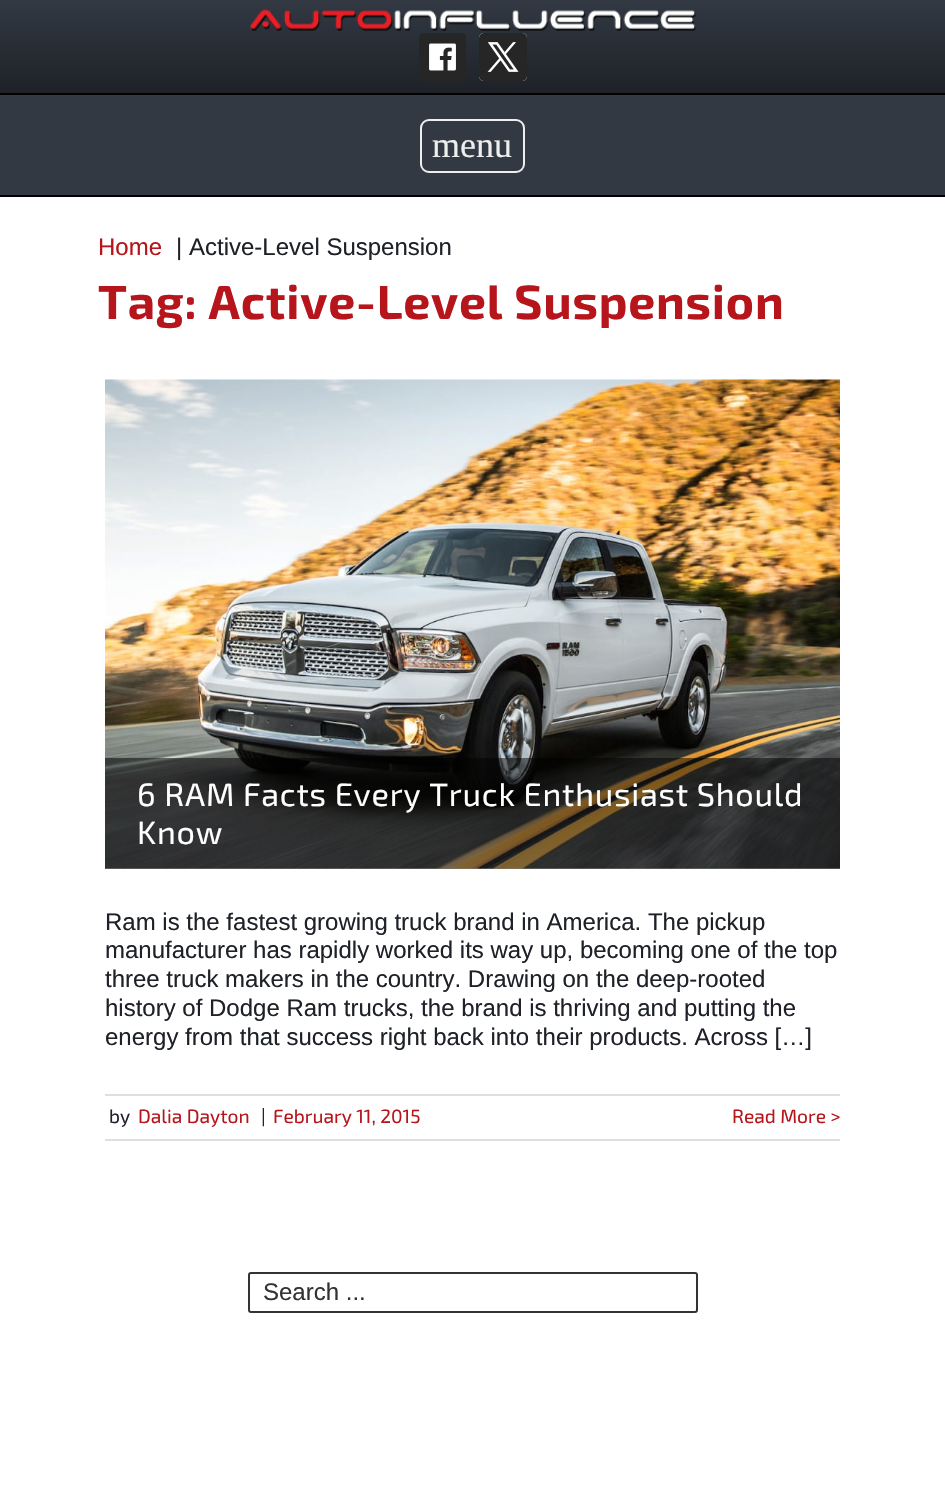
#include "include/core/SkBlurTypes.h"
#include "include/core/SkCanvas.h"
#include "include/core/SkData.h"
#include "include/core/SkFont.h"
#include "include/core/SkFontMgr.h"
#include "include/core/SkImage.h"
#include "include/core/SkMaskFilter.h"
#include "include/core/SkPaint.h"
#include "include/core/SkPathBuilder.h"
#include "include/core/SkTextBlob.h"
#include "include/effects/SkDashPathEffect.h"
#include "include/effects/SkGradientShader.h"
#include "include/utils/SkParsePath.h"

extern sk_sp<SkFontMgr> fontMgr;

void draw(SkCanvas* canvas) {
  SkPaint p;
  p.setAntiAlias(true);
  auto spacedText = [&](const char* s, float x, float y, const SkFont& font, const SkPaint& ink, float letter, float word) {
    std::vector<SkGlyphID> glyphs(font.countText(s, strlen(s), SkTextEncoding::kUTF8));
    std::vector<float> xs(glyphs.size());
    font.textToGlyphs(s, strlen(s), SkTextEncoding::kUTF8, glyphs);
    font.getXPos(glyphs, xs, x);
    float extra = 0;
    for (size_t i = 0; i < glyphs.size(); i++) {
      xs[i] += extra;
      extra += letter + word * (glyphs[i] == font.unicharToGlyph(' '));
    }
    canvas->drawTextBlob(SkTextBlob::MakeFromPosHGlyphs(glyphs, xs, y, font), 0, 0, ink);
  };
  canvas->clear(SK_ColorWHITE);
  {
    const SkColor colors[] = {SkColorSetRGB(50, 57, 67), SkColorSetRGB(30, 34, 40)};
    const float stops[] = {0, 1};
    const SkPoint ends[] = {{473, 0}, {473, 93}};
    p.setShader(SkGradientShader::MakeLinear(ends, colors, stops, 2, SkTileMode::kClamp));
    p.setAlpha(255);
  }
  canvas->drawRect(SkRect::MakeLTRB(0, 0, 945, 93), p);
  canvas->drawImageRect(SkImages::DeferredFromEncodedData(SkData::MakeFromFileName("images/1.png")), SkRect::MakeLTRB(249, 9, 696, 31), SkSamplingOptions());
  canvas->drawImageRect(SkImages::DeferredFromEncodedData(SkData::MakeFromFileName("images/2.png")), SkRect::MakeLTRB(419, 33, 466, 81), SkSamplingOptions());
  canvas->drawImageRect(SkImages::DeferredFromEncodedData(SkData::MakeFromFileName("images/3.png")), SkRect::MakeLTRB(479, 33, 527, 81), SkSamplingOptions());
  p.setShader(nullptr);
  p.setColor(SkColorSetRGB(50, 57, 67));
  canvas->drawRect(SkRect::MakeLTRB(0, 95, 945, 195), p);
  p.setColor(SK_ColorBLACK);
  canvas->drawRect(SkRect::MakeLTRB(0, 93, 945, 95), p);
  canvas->drawRect(SkRect::MakeLTRB(0, 195, 945, 197), p);
  p.setStyle(SkPaint::kStroke_Style);
  p.setStrokeWidth(2);
  p.setColor(SkColorSetRGB(238, 238, 238));
  canvas->drawRoundRect(SkRect::MakeLTRB(421, 120, 524, 172), 8, 8, p);
  canvas->drawImageRect(SkImages::DeferredFromEncodedData(SkData::MakeFromFileName("images/4.png")), SkRect::MakeLTRB(105, 379, 840, 869), SkSamplingOptions());
  p.setStyle(SkPaint::kFill_Style);
  p.setColor(SkColorSetARGB(128, 0, 0, 0));
  canvas->drawRect(SkRect::MakeLTRB(105, 758, 840, 869), p);
  p.setColor(SkColorSetRGB(224, 222, 222));
  canvas->drawRect(SkRect::MakeLTRB(105, 1094, 840, 1096), p);
  canvas->drawRect(SkRect::MakeLTRB(105, 1139, 840, 1141), p);
  p.setStyle(SkPaint::kStroke_Style);
  p.setColor(SkColorSetRGB(51, 51, 51));
  canvas->drawRoundRect(SkRect::MakeLTRB(249, 1273, 697, 1312), 2, 2, p);
  SkFont font1(fontMgr->matchFamilyStyle("Liberation Serif", SkFontStyle::Normal()), 36);
  font1.setSubpixel(true);
  p.setStyle(SkPaint::kFill_Style);
  p.setColor(SkColorSetRGB(238, 238, 238));
  canvas->drawString("menu", 432, 157, font1, p);
  SkFont font2(fontMgr->matchFamilyStyle("Liberation Sans", SkFontStyle::Normal()), 24);
  font2.setSubpixel(true);
  p.setColor(SkColorSetRGB(182, 21, 28));
  canvas->drawString("Home", 98, 255, font2, p);
  p.setColor(SkColorSetRGB(30, 34, 40));
  canvas->drawString("|", 176, 255, font2, p);
  canvas->drawString("Active-Level Suspension", 189, 255, font2, p);
  SkFont font3(fontMgr->matchFamilyStyle("Exo 2", SkFontStyle::Bold()), 48);
  font3.setSubpixel(true);
  p.setColor(SkColorSetRGB(182, 21, 28));
  spacedText("Tag: Active-Level Suspension", 98, 319, font3, p, 0.75f, 0);
  SkFont font4(fontMgr->matchFamilyStyle("Exo 2", SkFontStyle::Normal()), 32.4f);
  font4.setSubpixel(true);
  p.setColor(SK_ColorWHITE);
  spacedText("6 RAM Facts Every Truck Enthusiast Should", 137, 806, font4, p, 0.75f, 0);
  spacedText("Know", 137, 844, font4, p, 0.75f, 0);
  p.setColor(SkColorSetRGB(30, 34, 40));
  canvas->drawString("Ram is the fastest growing truck brand in America. The pickup", 105, 930, font2, p);
  canvas->drawString("manufacturer has rapidly worked its way up, becoming one of the top", 105, 958, font2, p);
  canvas->drawString("three truck makers in the country. Drawing on the deep-rooted", 105, 987, font2, p);
  canvas->drawString("history of Dodge Ram trucks, the brand is thriving and putting the", 105, 1016, font2, p);
  canvas->drawString("energy from that success right back into their products. Across […]", 105, 1045, font2, p);
  SkFont font5(fontMgr->matchFamilyStyle("Exo 2", SkFontStyle::Normal()), 19.25f);
  font5.setSubpixel(true);
  canvas->drawString("by", 109, 1123, font5, p);
  p.setColor(SkColorSetRGB(182, 21, 28));
  canvas->drawString("Dalia Dayton", 138, 1123, font5, p);
  p.setColor(SkColorSetRGB(30, 34, 40));
  canvas->drawString("|", 261, 1123, font5, p);
  p.setColor(SkColorSetRGB(182, 21, 28));
  canvas->drawString("February 11, 2015", 273, 1123, font5, p);
  canvas->drawString("Read More >", 732, 1123, font5, p);
  p.setColor(SkColorSetRGB(51, 51, 51));
  canvas->drawString("Search ...", 263, 1300, font2, p);
}
